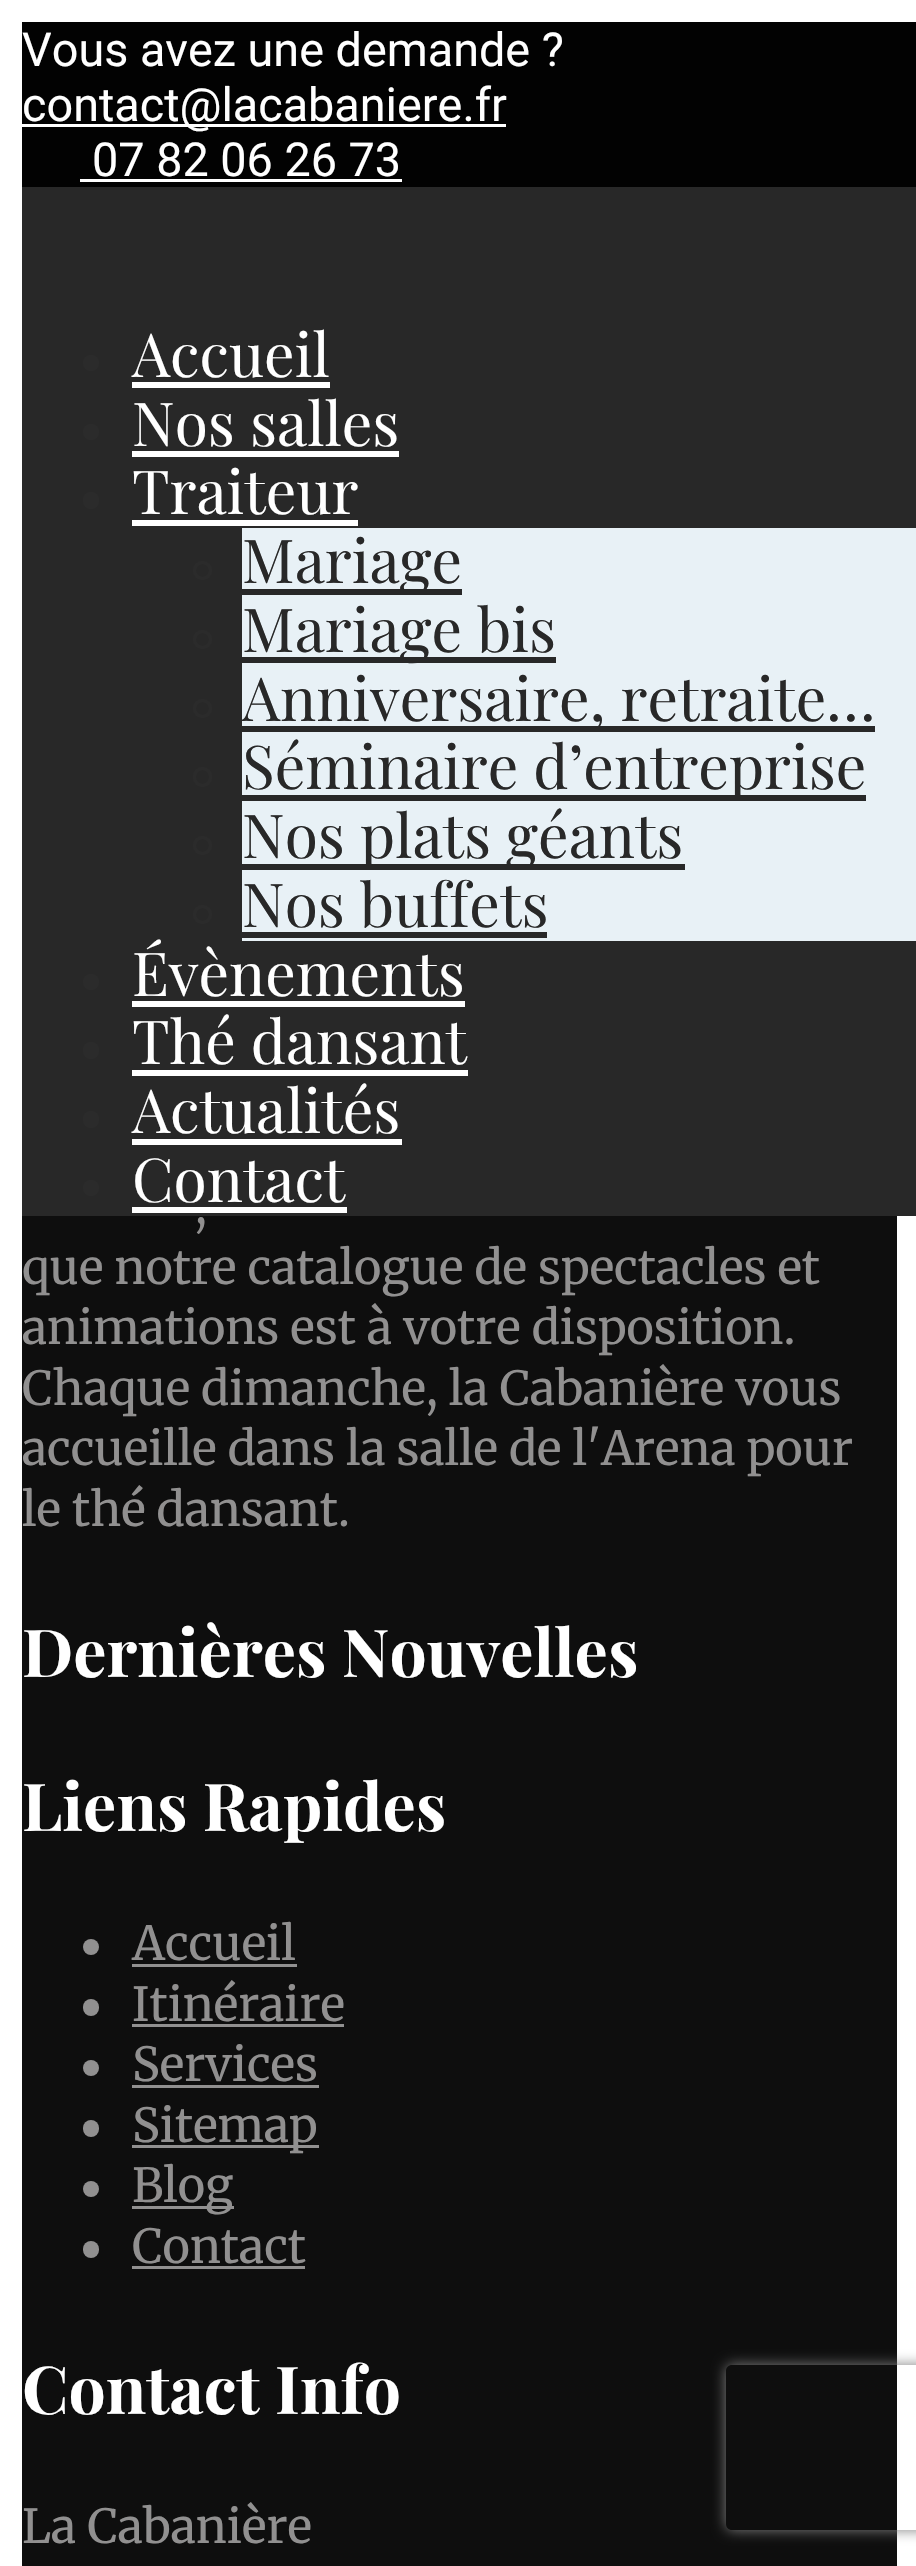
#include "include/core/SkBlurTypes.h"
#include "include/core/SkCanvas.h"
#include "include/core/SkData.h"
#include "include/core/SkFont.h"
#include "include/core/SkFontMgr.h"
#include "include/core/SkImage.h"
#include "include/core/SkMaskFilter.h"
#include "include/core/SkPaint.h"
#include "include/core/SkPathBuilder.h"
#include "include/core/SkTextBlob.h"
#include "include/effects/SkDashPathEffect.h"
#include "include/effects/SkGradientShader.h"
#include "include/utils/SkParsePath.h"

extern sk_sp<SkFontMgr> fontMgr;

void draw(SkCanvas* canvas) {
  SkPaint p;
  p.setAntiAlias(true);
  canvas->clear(SK_ColorWHITE);
  p.setColor(SkColorSetRGB(2, 2, 2));
  canvas->drawRect(SkRect::MakeLTRB(22, 22, 916, 187), p);
  p.setColor(SK_ColorWHITE);
  canvas->drawRect(SkRect::MakeLTRB(22, 124, 506, 127), p);
  canvas->drawRect(SkRect::MakeLTRB(80, 179, 402, 182), p);
  p.setColor(SkColorSetRGB(40, 40, 40));
  canvas->drawRect(SkRect::MakeLTRB(22, 187, 916, 1216), p);
  p.setColor(SkColorSetRGB(43, 43, 43));
  canvas->drawCircle(91, 363, 8, p);
  p.setColor(SK_ColorWHITE);
  canvas->drawRect(SkRect::MakeLTRB(132, 382, 330, 388), p);
  p.setColor(SkColorSetRGB(43, 43, 43));
  canvas->drawCircle(91, 432, 8, p);
  p.setColor(SK_ColorWHITE);
  canvas->drawRect(SkRect::MakeLTRB(132, 451, 399, 457), p);
  p.setColor(SkColorSetRGB(43, 43, 43));
  canvas->drawRoundRect(SkRect::MakeLTRB(83, 492, 99, 509), 8, 8, p);
  p.setColor(SK_ColorWHITE);
  canvas->drawRect(SkRect::MakeLTRB(132, 520, 358, 526), p);
  p.setColor(SkColorSetRGB(232, 241, 246));
  canvas->drawRect(SkRect::MakeLTRB(242, 528, 916, 941), p);
  p.setStyle(SkPaint::kStroke_Style);
  p.setStrokeWidth(3);
  p.setColor(SkColorSetRGB(43, 43, 43));
  canvas->drawCircle(202.5f, 570.5f, 8, p);
  p.setStyle(SkPaint::kFill_Style);
  p.setColor(SkColorSetRGB(40, 40, 40));
  canvas->drawRect(SkRect::MakeLTRB(242, 589, 462, 595), p);
  p.setStyle(SkPaint::kStroke_Style);
  p.setColor(SkColorSetRGB(43, 43, 43));
  canvas->drawCircle(202.5f, 639.5f, 8, p);
  p.setStyle(SkPaint::kFill_Style);
  p.setColor(SkColorSetRGB(40, 40, 40));
  canvas->drawRect(SkRect::MakeLTRB(242, 657, 556, 663), p);
  p.setStyle(SkPaint::kStroke_Style);
  p.setColor(SkColorSetRGB(43, 43, 43));
  canvas->drawCircle(202.5f, 708.5f, 8, p);
  p.setStyle(SkPaint::kFill_Style);
  p.setColor(SkColorSetRGB(40, 40, 40));
  canvas->drawRect(SkRect::MakeLTRB(242, 726, 875, 732), p);
  p.setStyle(SkPaint::kStroke_Style);
  p.setColor(SkColorSetRGB(43, 43, 43));
  canvas->drawRoundRect(SkRect::MakeLTRB(194.5f, 768.5f, 210.5f, 785.5f), 8, 8, p);
  p.setStyle(SkPaint::kFill_Style);
  p.setColor(SkColorSetRGB(40, 40, 40));
  canvas->drawRect(SkRect::MakeLTRB(242, 795, 866, 801), p);
  p.setStyle(SkPaint::kStroke_Style);
  p.setColor(SkColorSetRGB(43, 43, 43));
  canvas->drawCircle(202.5f, 845.5f, 8, p);
  p.setStyle(SkPaint::kFill_Style);
  p.setColor(SkColorSetRGB(40, 40, 40));
  canvas->drawRect(SkRect::MakeLTRB(242, 864, 685, 870), p);
  p.setStyle(SkPaint::kStroke_Style);
  p.setColor(SkColorSetRGB(43, 43, 43));
  canvas->drawCircle(202.5f, 914.5f, 8, p);
  p.setStyle(SkPaint::kFill_Style);
  p.setColor(SkColorSetRGB(40, 40, 40));
  canvas->drawRect(SkRect::MakeLTRB(242, 932, 547, 938), p);
  p.setColor(SkColorSetRGB(43, 43, 43));
  canvas->drawCircle(91, 982, 8, p);
  p.setColor(SK_ColorWHITE);
  canvas->drawRect(SkRect::MakeLTRB(132, 1001, 465, 1007), p);
  p.setColor(SkColorSetRGB(43, 43, 43));
  canvas->drawRoundRect(SkRect::MakeLTRB(83, 1042, 99, 1059), 8, 8, p);
  p.setColor(SK_ColorWHITE);
  canvas->drawRect(SkRect::MakeLTRB(132, 1070, 468, 1076), p);
  p.setColor(SkColorSetRGB(43, 43, 43));
  canvas->drawRoundRect(SkRect::MakeLTRB(83, 1111, 99, 1128), 8, 8, p);
  p.setColor(SK_ColorWHITE);
  canvas->drawRect(SkRect::MakeLTRB(132, 1139, 402, 1145), p);
  p.setColor(SkColorSetRGB(43, 43, 43));
  canvas->drawCircle(91, 1188, 8, p);
  p.setColor(SK_ColorWHITE);
  canvas->drawRect(SkRect::MakeLTRB(132, 1207, 347, 1213), p);
  p.setColor(SkColorSetRGB(14, 14, 14));
  canvas->drawRect(SkRect::MakeLTRB(22, 1216, 897, 2566), p);
  p.setColor(SkColorSetRGB(145, 144, 144));
  canvas->drawCircle(91, 1947, 8, p);
  canvas->drawRect(SkRect::MakeLTRB(132, 1964, 297, 1967), p);
  canvas->drawRoundRect(SkRect::MakeLTRB(83, 1999, 99, 2016), 8, 8, p);
  canvas->drawRect(SkRect::MakeLTRB(132, 2024, 344, 2027), p);
  canvas->drawCircle(91, 2068, 8, p);
  canvas->drawRect(SkRect::MakeLTRB(132, 2085, 319, 2088), p);
  canvas->drawRoundRect(SkRect::MakeLTRB(83, 2120, 99, 2137), 8, 8, p);
  canvas->drawRect(SkRect::MakeLTRB(132, 2145, 319, 2148), p);
  canvas->drawCircle(91, 2189, 8, p);
  canvas->drawRect(SkRect::MakeLTRB(132, 2206, 234, 2209), p);
  canvas->drawRoundRect(SkRect::MakeLTRB(83, 2241, 99, 2258), 8, 8, p);
  canvas->drawRect(SkRect::MakeLTRB(132, 2266, 305, 2269), p);
  canvas->save();
  canvas->clipPath(SkPathBuilder(SkPathFillType::kEvenOdd).moveTo(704, 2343).lineTo(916, 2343).lineTo(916, 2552).lineTo(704, 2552).close().moveTo(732, 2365).lineTo(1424, 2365).cubicTo(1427.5f, 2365, 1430, 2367.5f, 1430, 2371).lineTo(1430, 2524).cubicTo(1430, 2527.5f, 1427.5f, 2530, 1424, 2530).lineTo(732, 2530).cubicTo(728.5f, 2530, 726, 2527.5f, 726, 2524).lineTo(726, 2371).cubicTo(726, 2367.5f, 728.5f, 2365, 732, 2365).close().detach(), true);
  p.setColor(SkColorSetRGB(128, 128, 128));
  p.setMaskFilter(SkMaskFilter::MakeBlur(kNormal_SkBlurStyle, 7));
  canvas->drawRoundRect(SkRect::MakeLTRB(726, 2365, 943, 2530), 6, 6, p);
  p.setMaskFilter(nullptr);
  canvas->restore();
  SkFont font1(fontMgr->matchFamilyStyle("Roboto", SkFontStyle::Normal()), 46.75f);
  font1.setSubpixel(true);
  p.setColor(SK_ColorWHITE);
  canvas->drawString("Vous avez une demande ?", 22, 66, font1, p);
  canvas->drawString("contact@lacabaniere.fr", 22, 121, font1, p);
  canvas->drawString("07 82 06 26 73", 92, 176, font1, p);
  SkFont font2(fontMgr->matchFamilyStyle("Playfair Display", SkFontStyle::Normal()), 60.5f);
  font2.setSubpixel(true);
  canvas->drawString("Accueil", 132, 377, font2, p);
  canvas->drawString("Nos salles", 132, 446, font2, p);
  canvas->drawString("Traiteur", 132, 514, font2, p);
  p.setColor(SkColorSetRGB(40, 40, 40));
  canvas->drawString("Mariage", 242, 583, font2, p);
  canvas->drawString("Mariage bis", 242, 652, font2, p);
  canvas->drawString("Anniversaire, retraite…", 242, 721, font2, p);
  canvas->drawString("Séminaire d’entreprise", 242, 789, font2, p);
  canvas->drawString("Nos plats géants", 242, 858, font2, p);
  canvas->drawString("Nos buffets", 242, 927, font2, p);
  p.setColor(SK_ColorWHITE);
  canvas->drawString("Évènements", 132, 996, font2, p);
  canvas->drawString("Thé dansant", 132, 1064, font2, p);
  canvas->drawString("Actualités", 132, 1133, font2, p);
  canvas->drawString("Contact", 132, 1202, font2, p);
  SkFont font3(fontMgr->matchFamilyStyle("Merriweather", SkFontStyle(300, SkFontStyle::kNormal_Width, SkFontStyle::kUpright_Slant)), 46.75f);
  font3.setSubpixel(true);
  p.setColor(SkColorSetRGB(145, 144, 144));
  canvas->drawString(",", 195, 1223, font3, p);
  canvas->drawString("que notre catalogue de spectacles et", 22, 1284, font3, p);
  canvas->drawString("animations est à votre disposition.", 22, 1344, font3, p);
  canvas->drawString("Chaque dimanche, la Cabanière vous", 22, 1405, font3, p);
  canvas->drawString("accueille dans la salle de l'Arena pour", 22, 1465, font3, p);
  canvas->drawString("le thé dansant.", 22, 1526, font3, p);
  SkFont font4(fontMgr->matchFamilyStyle("Playfair Display", SkFontStyle::Bold()), 66);
  font4.setSubpixel(true);
  p.setColor(SK_ColorWHITE);
  canvas->drawString("Dernières Nouvelles", 22, 1677, font4, p);
  canvas->drawString("Liens Rapides", 22, 1831, font4, p);
  p.setColor(SkColorSetRGB(145, 144, 144));
  canvas->drawString("Accueil", 132, 1960, font3, p);
  canvas->drawString("Itinéraire", 132, 2021, font3, p);
  canvas->drawString("Services", 132, 2081, font3, p);
  canvas->drawString("Sitemap", 132, 2142, font3, p);
  canvas->drawString("Blog", 132, 2202, font3, p);
  canvas->drawString("Contact", 132, 2263, font3, p);
  p.setColor(SK_ColorWHITE);
  canvas->drawString("Contact Info", 22, 2414, font4, p);
  p.setColor(SkColorSetRGB(145, 144, 144));
  canvas->drawString("La Cabanière", 22, 2543, font3, p);
}
